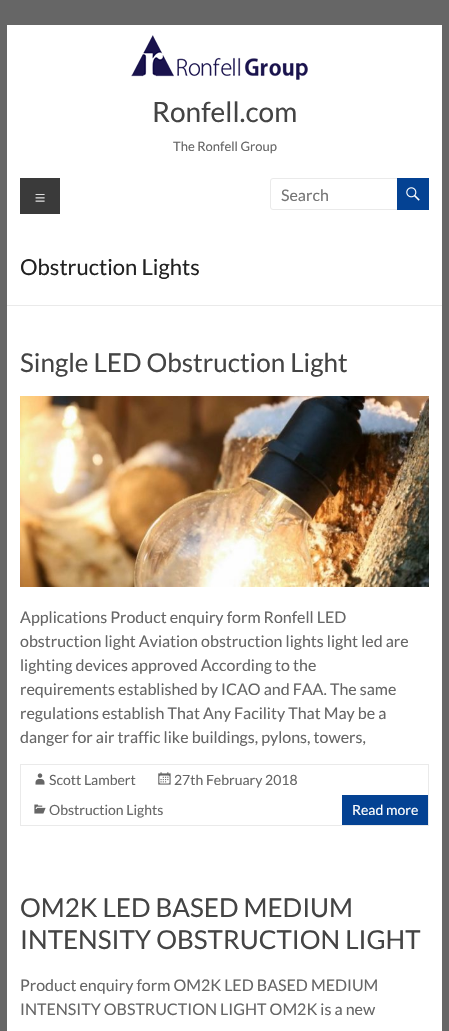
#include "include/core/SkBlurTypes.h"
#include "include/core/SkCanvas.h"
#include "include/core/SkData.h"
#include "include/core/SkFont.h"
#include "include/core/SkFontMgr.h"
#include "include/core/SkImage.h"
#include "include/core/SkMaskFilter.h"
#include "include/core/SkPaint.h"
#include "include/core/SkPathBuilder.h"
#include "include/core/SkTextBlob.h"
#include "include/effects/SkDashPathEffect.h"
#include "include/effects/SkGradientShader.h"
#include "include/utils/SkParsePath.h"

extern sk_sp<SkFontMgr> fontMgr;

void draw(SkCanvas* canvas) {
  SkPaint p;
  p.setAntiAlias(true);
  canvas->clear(SkColorSetRGB(102, 102, 102));
  p.setColor(SK_ColorWHITE);
  canvas->drawRect(SkRect::MakeLTRB(7, 25, 442, 1031), p);
  canvas->drawImageRect(SkImages::DeferredFromEncodedData(SkData::MakeFromFileName("images/1.png")), SkRect::MakeLTRB(131, 35, 308, 80), SkSamplingOptions());
  p.setColor(SkColorSetRGB(58, 58, 58));
  canvas->drawRect(SkRect::MakeLTRB(20, 178, 60, 214), p);
  p.setStyle(SkPaint::kStroke_Style);
  p.setStrokeWidth(1);
  p.setColor(SkColorSetRGB(234, 234, 234));
  canvas->drawRoundRect(SkRect::MakeLTRB(270.5f, 178.5f, 399.5f, 209.5f), 2.5f, 2.5f, p);
  p.setStyle(SkPaint::kFill_Style);
  p.setColor(SkColorSetRGB(4, 66, 147));
  canvas->drawRect(SkRect::MakeLTRB(397, 178, 429, 210), p);
  canvas->drawImageRect(SkImages::DeferredFromEncodedData(SkData::MakeFromFileName("images/2.png")), SkRect::MakeLTRB(406, 187, 420, 201), SkSamplingOptions());
  p.setColor(SkColorSetRGB(234, 234, 234));
  canvas->drawRect(SkRect::MakeLTRB(7, 305, 442, 306), p);
  canvas->drawImageRect(SkImages::DeferredFromEncodedData(SkData::MakeFromFileName("images/3.png")), SkRect::MakeLTRB(20, 396, 429, 587), SkSamplingOptions());
  p.setStyle(SkPaint::kStroke_Style);
  canvas->drawRect(SkRect::MakeLTRB(20.5f, 764.5f, 428.5f, 825.5f), p);
  canvas->drawImageRect(SkImages::DeferredFromEncodedData(SkData::MakeFromFileName("images/4.png")), SkRect::MakeLTRB(35, 773, 45, 785), SkSamplingOptions());
  canvas->drawImageRect(SkImages::DeferredFromEncodedData(SkData::MakeFromFileName("images/5.png")), SkRect::MakeLTRB(158, 772, 171, 785), SkSamplingOptions());
  canvas->drawImageRect(SkImages::DeferredFromEncodedData(SkData::MakeFromFileName("images/6.png")), SkRect::MakeLTRB(34, 804, 46, 814), SkSamplingOptions());
  p.setStyle(SkPaint::kFill_Style);
  p.setColor(SkColorSetRGB(4, 66, 147));
  canvas->drawRect(SkRect::MakeLTRB(342, 795, 428, 825), p);
  SkFont font1(fontMgr->matchFamilyStyle("Lato", SkFontStyle::Normal()), 28);
  font1.setSubpixel(true);
  p.setColor(SkColorSetRGB(68, 68, 68));
  canvas->drawString("Ronfell.com", 152, 122, font1, p);
  SkFont font2(fontMgr->matchFamilyStyle("Lato", SkFontStyle::Normal()), 13);
  font2.setSubpixel(true);
  p.setColor(SkColorSetRGB(102, 102, 102));
  canvas->drawString("The Ronfell Group", 173, 151, font2, p);
  SkFont font3(fontMgr->matchFamilyStyle("Lato", SkFontStyle(300, SkFontStyle::kNormal_Width, SkFontStyle::kUpright_Slant)), 21);
  font3.setSubpixel(true);
  p.setColor(SK_ColorWHITE);
  canvas->drawString("≡", 34, 205, font3, p);
  SkFont font4(fontMgr->matchFamilyStyle("Lato", SkFontStyle::Normal()), 16);
  font4.setSubpixel(true);
  p.setColor(SkColorSetRGB(117, 117, 117));
  canvas->drawString("Search", 281, 201, font4, p);
  SkFont font5(fontMgr->matchFamilyStyle("Lato", SkFontStyle::Normal()), 22);
  font5.setSubpixel(true);
  p.setColor(SkColorSetRGB(34, 34, 34));
  canvas->drawString("Obstruction Lights", 20, 275, font5, p);
  SkFont font6(fontMgr->matchFamilyStyle("Lato", SkFontStyle::Normal()), 26);
  font6.setSubpixel(true);
  p.setColor(SkColorSetRGB(68, 68, 68));
  canvas->drawString("Single LED Obstruction Light", 20, 372, font6, p);
  p.setColor(SkColorSetRGB(102, 102, 102));
  canvas->drawString("Applications Product enquiry form Ronfell LED", 20, 623, font4, p);
  canvas->drawString("obstruction light Aviation obstruction lights light led are", 20, 647, font4, p);
  canvas->drawString("lighting devices approved According to the", 20, 671, font4, p);
  canvas->drawString("requirements established by ICAO and FAA. The same", 20, 695, font4, p);
  canvas->drawString("regulations establish That Any Facility That May be a", 20, 719, font4, p);
  canvas->drawString("danger for air traffic like buildings, pylons, towers,", 20, 743, font4, p);
  SkFont font7(fontMgr->matchFamilyStyle("Lato", SkFontStyle::Normal()), 14);
  font7.setSubpixel(true);
  canvas->drawString("Scott Lambert", 49, 785, font7, p);
  canvas->drawString("27th February 2018", 174, 785, font7, p);
  canvas->drawString("Obstruction Lights", 49, 815, font7, p);
  p.setColor(SK_ColorWHITE);
  canvas->drawString("Read more", 352, 815, font7, p);
  p.setColor(SkColorSetRGB(68, 68, 68));
  canvas->drawString("OM2K LED BASED MEDIUM", 20, 917, font6, p);
  canvas->drawString("INTENSITY OBSTRUCTION LIGHT", 20, 949, font6, p);
  p.setColor(SkColorSetRGB(102, 102, 102));
  canvas->drawString("Product enquiry form OM2K LED BASED MEDIUM", 20, 991, font4, p);
  canvas->drawString("INTENSITY OBSTRUCTION LIGHT OM2K is a new", 20, 1015, font4, p);
}
